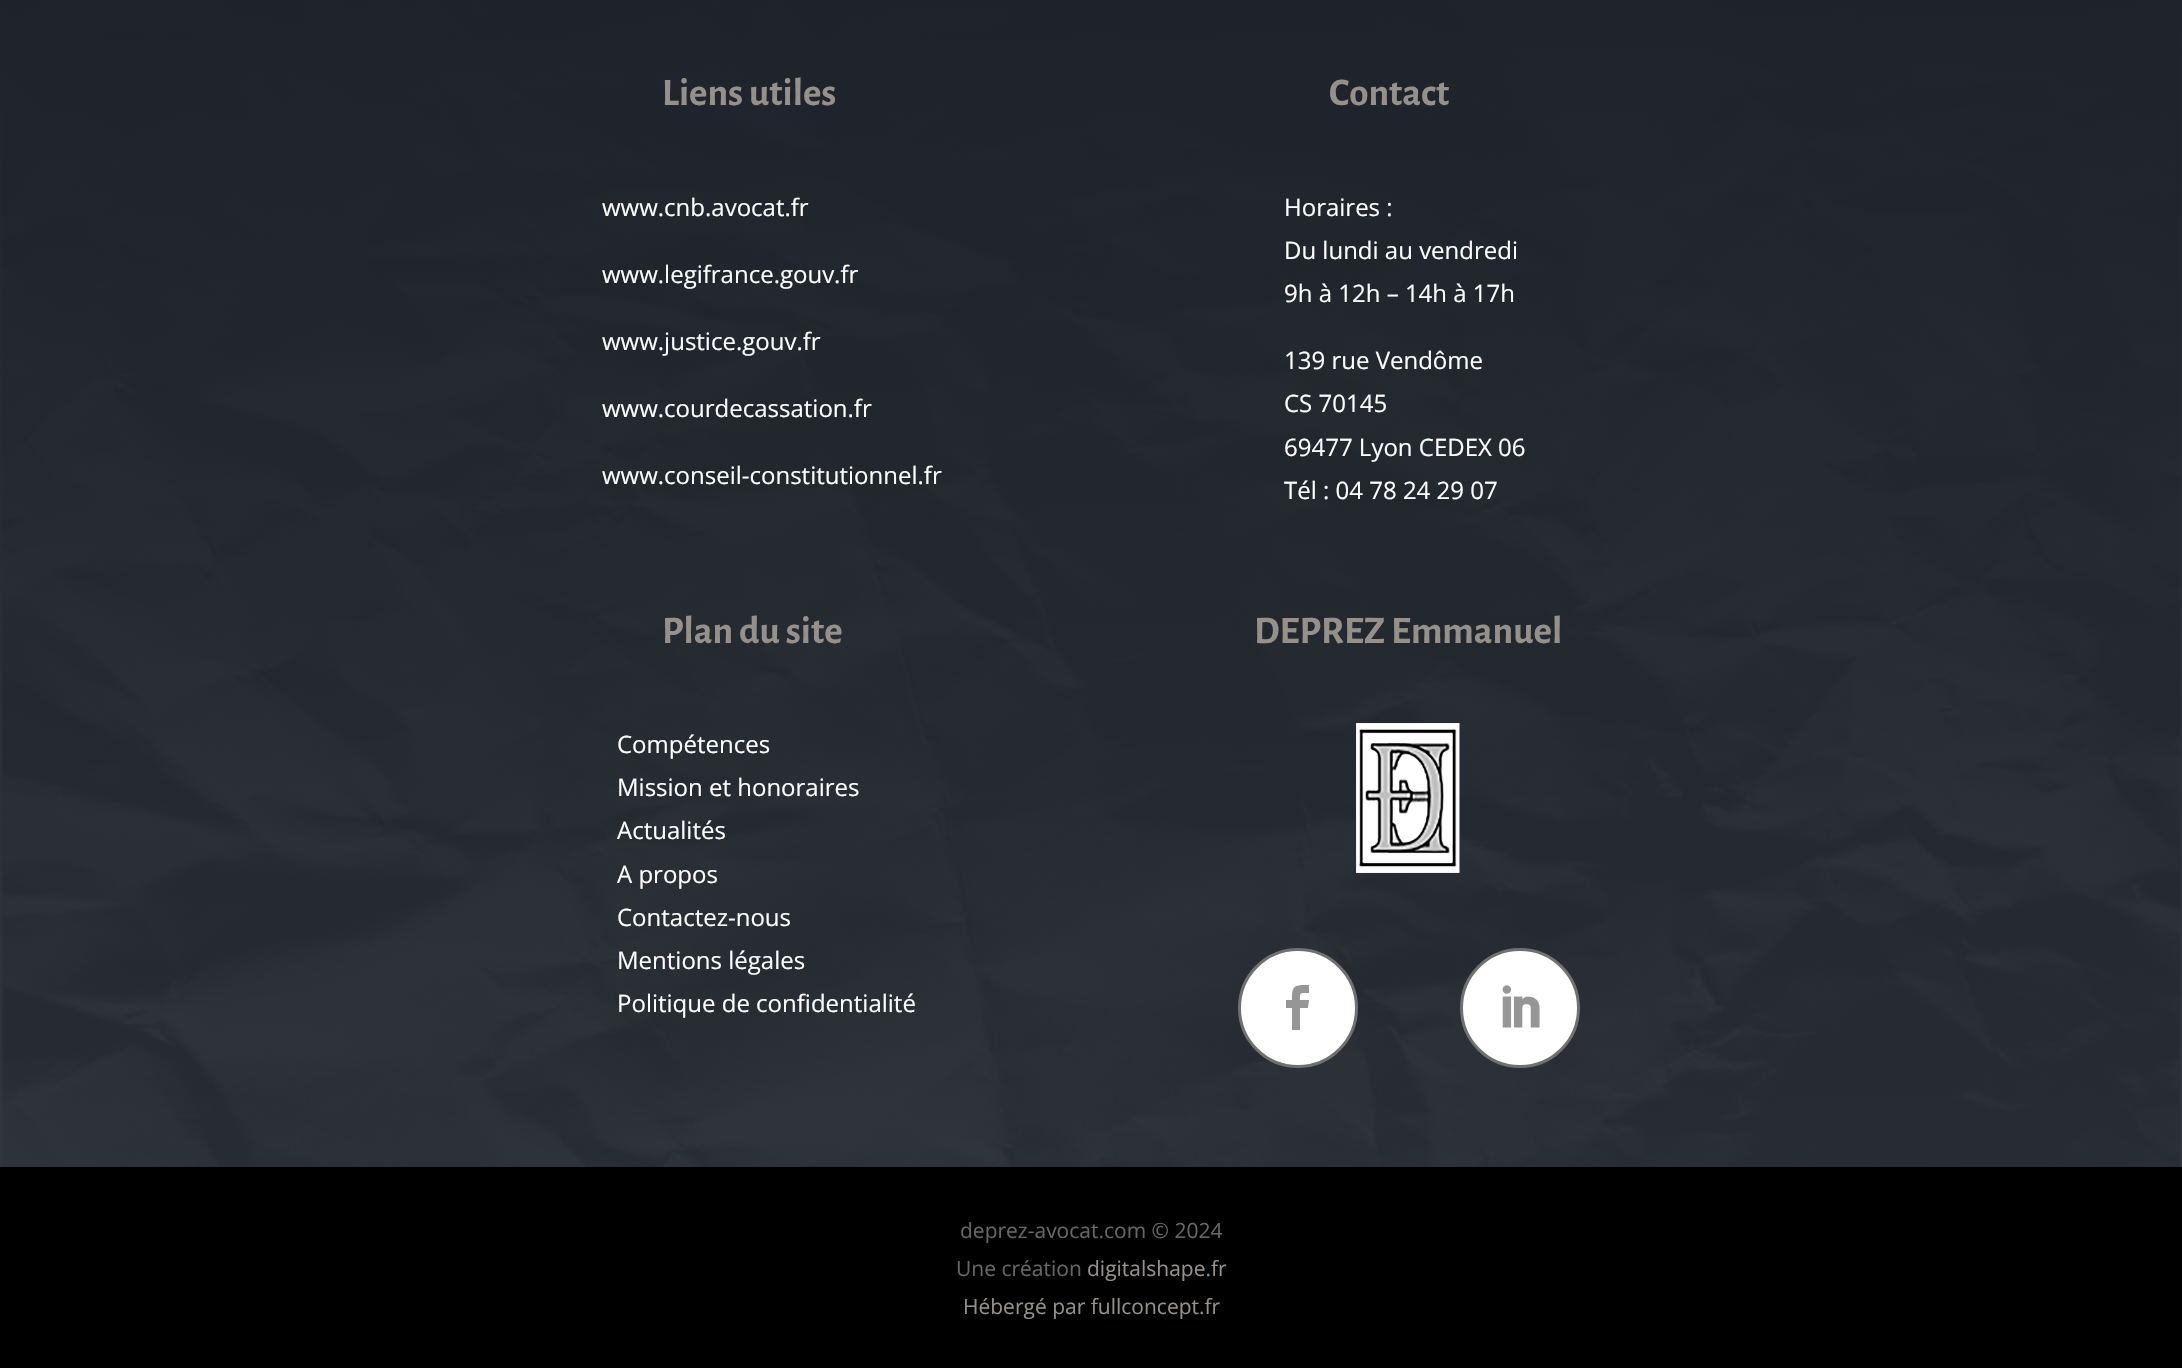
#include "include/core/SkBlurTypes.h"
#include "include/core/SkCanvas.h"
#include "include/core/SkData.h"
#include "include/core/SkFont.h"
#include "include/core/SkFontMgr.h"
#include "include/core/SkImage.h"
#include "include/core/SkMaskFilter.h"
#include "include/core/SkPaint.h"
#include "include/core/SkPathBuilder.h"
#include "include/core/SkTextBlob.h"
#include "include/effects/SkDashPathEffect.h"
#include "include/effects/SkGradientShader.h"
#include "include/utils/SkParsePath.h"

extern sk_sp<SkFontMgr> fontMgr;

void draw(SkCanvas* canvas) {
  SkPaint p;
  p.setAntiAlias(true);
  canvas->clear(SK_ColorWHITE);
  canvas->drawImageRect(SkImages::DeferredFromEncodedData(SkData::MakeFromFileName("images/1.png")), SkRect::MakeLTRB(0, 0, 2182, 1167), SkSamplingOptions());
  canvas->drawImageRect(SkImages::DeferredFromEncodedData(SkData::MakeFromFileName("images/2.png")), SkRect::MakeLTRB(1356, 723, 1460, 873), SkSamplingOptions());
  p.setColor(SK_ColorWHITE);
  canvas->drawCircle(1298, 1008, 58.5f, p);
  p.setStyle(SkPaint::kStroke_Style);
  p.setStrokeWidth(3);
  p.setColor(SkColorSetRGB(112, 112, 112));
  canvas->drawCircle(1298, 1008, 58.5f, p);
  p.setStyle(SkPaint::kFill_Style);
  p.setColor(SkColorSetRGB(150, 150, 150));
  canvas->drawPath(SkPathBuilder().moveTo(1292, 1030).lineTo(1300, 1030).lineTo(1300, 1008).lineTo(1308, 1008).lineTo(1309, 1000).lineTo(1300, 1000).cubicTo(1300, 992, 1300, 993, 1309, 993).lineTo(1309, 985).cubicTo(1294, 985, 1292, 985, 1292, 1000).lineTo(1286, 1000).lineTo(1286, 1008).lineTo(1292, 1008).close().detach(), p);
  p.setColor(SK_ColorWHITE);
  canvas->drawCircle(1520, 1008, 58.5f, p);
  p.setStyle(SkPaint::kStroke_Style);
  p.setColor(SkColorSetRGB(112, 112, 112));
  canvas->drawCircle(1520, 1008, 58.5f, p);
  canvas->drawImageRect(SkImages::DeferredFromEncodedData(SkData::MakeFromFileName("images/3.png")), SkRect::MakeLTRB(1502, 985, 1540, 1028), SkSamplingOptions());
  p.setStyle(SkPaint::kFill_Style);
  p.setColor(SK_ColorBLACK);
  canvas->drawRect(SkRect::MakeLTRB(0, 1167, 2182, 1368), p);
  SkFont font1(fontMgr->matchFamilyStyle("Alegreya Sans", SkFontStyle::Bold()), 39);
  font1.setSubpixel(true);
  p.setColor(SkColorSetRGB(150, 144, 139));
  canvas->drawString("Liens utiles", 662, 105, font1, p);
  SkFont font2(fontMgr->matchFamilyStyle("Open Sans", SkFontStyle::Normal()), 24);
  font2.setSubpixel(true);
  p.setColor(SK_ColorWHITE);
  canvas->drawString("www.cnb.avocat.fr", 602, 216, font2, p);
  canvas->drawString("www.legifrance.gouv.fr", 602, 283, font2, p);
  canvas->drawString("www.justice.gouv.fr", 602, 350, font2, p);
  canvas->drawString("www.courdecassation.fr", 602, 417, font2, p);
  canvas->drawString("www.conseil-constitutionnel.fr", 602, 484, font2, p);
  p.setColor(SkColorSetRGB(150, 144, 139));
  canvas->drawString("Contact", 1329, 105, font1, p);
  p.setColor(SK_ColorWHITE);
  canvas->drawString("Horaires :", 1284, 216, font2, p);
  canvas->drawString("Du lundi au vendredi", 1284, 259, font2, p);
  canvas->drawString("9h à 12h – 14h à 17h", 1284, 302, font2, p);
  canvas->drawString("139 rue Vendôme", 1284, 369, font2, p);
  canvas->drawString("CS 70145", 1284, 412, font2, p);
  canvas->drawString("69477 Lyon CEDEX 06", 1284, 456, font2, p);
  canvas->drawString("Tél : 04 78 24 29 07", 1284, 499, font2, p);
  p.setColor(SkColorSetRGB(150, 144, 139));
  canvas->drawString("Plan du site", 662, 643, font1, p);
  p.setColor(SK_ColorWHITE);
  canvas->drawString("Compétences", 617, 753, font2, p);
  canvas->drawString("Mission et honoraires", 617, 796, font2, p);
  canvas->drawString("Actualités", 617, 839, font2, p);
  canvas->drawString("A propos", 617, 883, font2, p);
  canvas->drawString("Contactez-nous", 617, 926, font2, p);
  canvas->drawString("Mentions légales", 617, 969, font2, p);
  canvas->drawString("Politique de confidentialité", 617, 1012, font2, p);
  p.setColor(SkColorSetRGB(150, 144, 139));
  canvas->drawString("DEPREZ Emmanuel", 1254, 643, font1, p);
  SkFont font3(fontMgr->matchFamilyStyle("Open Sans", SkFontStyle::Normal()), 21);
  font3.setSubpixel(true);
  p.setColor(SkColorSetRGB(102, 102, 102));
  canvas->drawString("deprez-avocat.com © 2024", 960, 1238, font3, p);
  canvas->drawString("Une création", 956, 1276, font3, p);
  p.setColor(SkColorSetRGB(150, 144, 139));
  canvas->drawString("digitalshape.fr", 1087, 1276, font3, p);
  canvas->drawString("Hébergé par fullconcept.fr", 963, 1314, font3, p);
}
